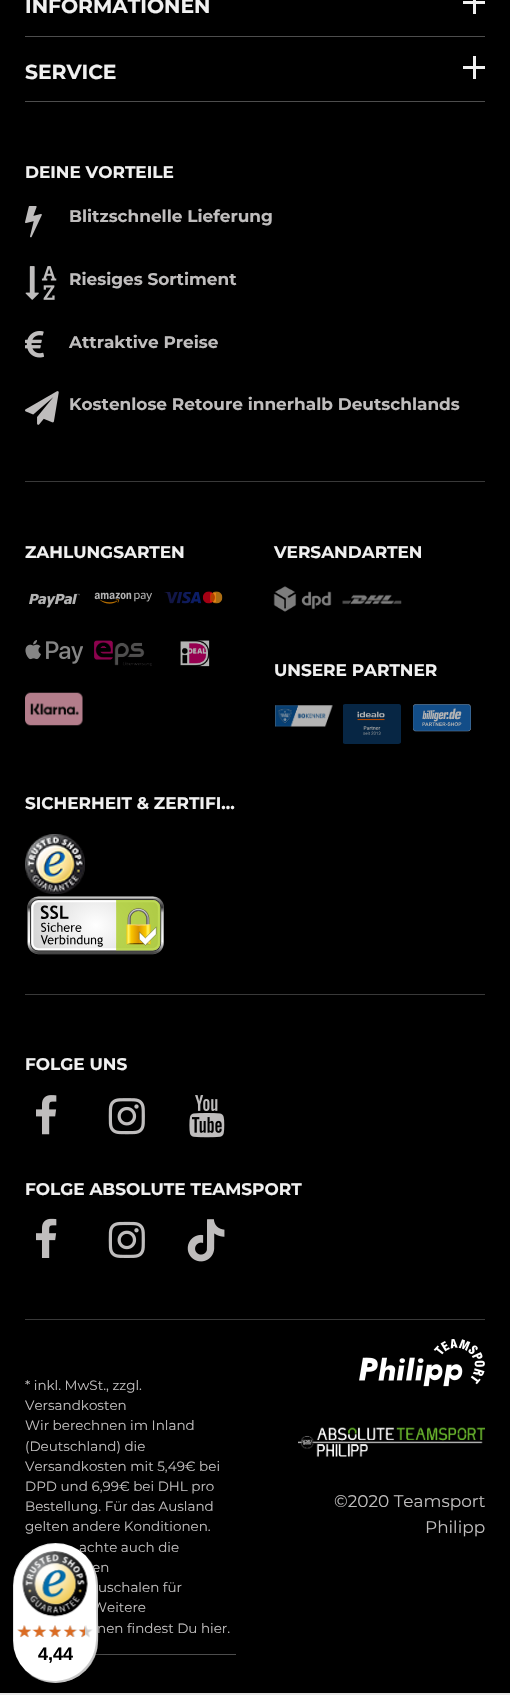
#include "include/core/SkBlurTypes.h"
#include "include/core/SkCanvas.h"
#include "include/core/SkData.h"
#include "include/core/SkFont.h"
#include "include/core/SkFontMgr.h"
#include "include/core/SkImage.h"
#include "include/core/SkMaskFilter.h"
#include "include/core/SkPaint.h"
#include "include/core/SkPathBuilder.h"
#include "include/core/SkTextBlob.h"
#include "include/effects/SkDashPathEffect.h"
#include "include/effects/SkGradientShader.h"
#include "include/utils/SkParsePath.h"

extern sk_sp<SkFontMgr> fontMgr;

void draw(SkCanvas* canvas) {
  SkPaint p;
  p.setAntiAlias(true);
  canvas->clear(SK_ColorBLACK);
  p.setColor(SkColorSetRGB(231, 231, 231));
  canvas->drawRect(SkRect::MakeLTRB(0, 1693, 510, 1695), p);
  p.setColor(SkColorSetRGB(77, 77, 77));
  canvas->drawRect(SkRect::MakeLTRB(25, 36, 485, 37), p);
  p.setColor(SkColorSetRGB(240, 240, 240));
  canvas->drawRect(SkRect::MakeLTRB(473, 0, 476, 14), p);
  canvas->drawRect(SkRect::MakeLTRB(463, 1, 485, 4), p);
  p.setColor(SkColorSetRGB(77, 77, 77));
  canvas->drawRect(SkRect::MakeLTRB(25, 101, 485, 102), p);
  p.setColor(SkColorSetRGB(240, 240, 240));
  canvas->drawRect(SkRect::MakeLTRB(473, 56, 476, 79), p);
  canvas->drawRect(SkRect::MakeLTRB(463, 66, 485, 69), p);
  canvas->drawImageRect(SkImages::DeferredFromEncodedData(SkData::MakeFromFileName("images/1.png")), SkRect::MakeLTRB(25, 206, 42, 238), SkSamplingOptions());
  canvas->drawImageRect(SkImages::DeferredFromEncodedData(SkData::MakeFromFileName("images/2.png")), SkRect::MakeLTRB(25, 266, 57, 300), SkSamplingOptions());
  canvas->drawImageRect(SkImages::DeferredFromEncodedData(SkData::MakeFromFileName("images/3.png")), SkRect::MakeLTRB(25, 331, 44, 358), SkSamplingOptions());
  canvas->drawImageRect(SkImages::DeferredFromEncodedData(SkData::MakeFromFileName("images/4.png")), SkRect::MakeLTRB(25, 391, 59, 425), SkSamplingOptions());
  p.setColor(SkColorSetRGB(57, 57, 57));
  canvas->drawRect(SkRect::MakeLTRB(25, 481, 485, 482), p);
  canvas->drawImageRect(SkImages::DeferredFromEncodedData(SkData::MakeFromFileName("images/5.png")), SkRect::MakeLTRB(29, 593, 80, 608), SkSamplingOptions());
  canvas->drawImageRect(SkImages::DeferredFromEncodedData(SkData::MakeFromFileName("images/6.png")), SkRect::MakeLTRB(94, 592, 152, 604), SkSamplingOptions());
  canvas->drawImageRect(SkImages::DeferredFromEncodedData(SkData::MakeFromFileName("images/7.png")), SkRect::MakeLTRB(164, 591, 223, 604), SkSamplingOptions());
  canvas->drawImageRect(SkImages::DeferredFromEncodedData(SkData::MakeFromFileName("images/8.png")), SkRect::MakeLTRB(25, 640, 83, 664), SkSamplingOptions());
  canvas->drawImageRect(SkImages::DeferredFromEncodedData(SkData::MakeFromFileName("images/9.png")), SkRect::MakeLTRB(94, 640, 152, 666), SkSamplingOptions());
  canvas->drawImageRect(SkImages::DeferredFromEncodedData(SkData::MakeFromFileName("images/10.png")), SkRect::MakeLTRB(180, 640, 210, 667), SkSamplingOptions());
  canvas->drawImageRect(SkImages::DeferredFromEncodedData(SkData::MakeFromFileName("images/11.png")), SkRect::MakeLTRB(25, 692, 83, 726), SkSamplingOptions());
  canvas->drawImageRect(SkImages::DeferredFromEncodedData(SkData::MakeFromFileName("images/12.png")), SkRect::MakeLTRB(273, 586, 332, 612), SkSamplingOptions());
  canvas->drawImageRect(SkImages::DeferredFromEncodedData(SkData::MakeFromFileName("images/13.png")), SkRect::MakeLTRB(342, 594, 402, 605), SkSamplingOptions());
  canvas->drawImageRect(SkImages::DeferredFromEncodedData(SkData::MakeFromFileName("images/14.png")), SkRect::MakeLTRB(275, 705, 333, 727), SkSamplingOptions());
  canvas->drawImageRect(SkImages::DeferredFromEncodedData(SkData::MakeFromFileName("images/15.png")), SkRect::MakeLTRB(343, 704, 401, 744), SkSamplingOptions());
  canvas->drawImageRect(SkImages::DeferredFromEncodedData(SkData::MakeFromFileName("images/16.png")), SkRect::MakeLTRB(413, 704, 471, 732), SkSamplingOptions());
  canvas->drawImageRect(SkImages::DeferredFromEncodedData(SkData::MakeFromFileName("images/17.png")), SkRect::MakeLTRB(25, 834, 85, 894), SkSamplingOptions());
  canvas->drawImageRect(SkImages::DeferredFromEncodedData(SkData::MakeFromFileName("images/18.png")), SkRect::MakeLTRB(27, 896, 164, 955), SkSamplingOptions());
  canvas->drawRect(SkRect::MakeLTRB(25, 994, 485, 995), p);
  canvas->drawImageRect(SkImages::DeferredFromEncodedData(SkData::MakeFromFileName("images/19.png")), SkRect::MakeLTRB(36, 1095, 57, 1135), SkSamplingOptions());
  canvas->drawImageRect(SkImages::DeferredFromEncodedData(SkData::MakeFromFileName("images/20.png")), SkRect::MakeLTRB(108, 1098, 145, 1135), SkSamplingOptions());
  canvas->drawImageRect(SkImages::DeferredFromEncodedData(SkData::MakeFromFileName("images/21.png")), SkRect::MakeLTRB(189, 1095, 225, 1138), SkSamplingOptions());
  canvas->drawImageRect(SkImages::DeferredFromEncodedData(SkData::MakeFromFileName("images/22.png")), SkRect::MakeLTRB(36, 1218, 57, 1258), SkSamplingOptions());
  canvas->drawImageRect(SkImages::DeferredFromEncodedData(SkData::MakeFromFileName("images/23.png")), SkRect::MakeLTRB(108, 1221, 145, 1258), SkSamplingOptions());
  canvas->drawImageRect(SkImages::DeferredFromEncodedData(SkData::MakeFromFileName("images/24.png")), SkRect::MakeLTRB(187, 1219, 225, 1262), SkSamplingOptions());
  canvas->drawRect(SkRect::MakeLTRB(25, 1319, 485, 1320), p);
  p.setColor(SkColorSetRGB(77, 77, 77));
  canvas->drawRect(SkRect::MakeLTRB(95, 1654, 236, 1655), p);
  canvas->drawImageRect(SkImages::DeferredFromEncodedData(SkData::MakeFromFileName("images/25.png")), SkRect::MakeLTRB(359, 1339, 485, 1387), SkSamplingOptions());
  canvas->drawImageRect(SkImages::DeferredFromEncodedData(SkData::MakeFromFileName("images/26.png")), SkRect::MakeLTRB(298, 1427, 485, 1457), SkSamplingOptions());
  p.setColor(SkColorSetARGB(38, 0, 0, 0));
  p.setMaskFilter(SkMaskFilter::MakeBlur(kNormal_SkBlurStyle, 5));
  canvas->drawRoundRect(SkRect::MakeLTRB(16, 1546, 101, 1686), 42.5f, 42.5f, p);
  p.setMaskFilter(nullptr);
  p.setMaskFilter(SkMaskFilter::MakeBlur(kNormal_SkBlurStyle, 1));
  canvas->drawRoundRect(SkRect::MakeLTRB(14, 1544, 99, 1684), 42.5f, 42.5f, p);
  p.setMaskFilter(nullptr);
  SkFont font1(fontMgr->matchFamilyStyle("Montserrat", SkFontStyle(100, SkFontStyle::kNormal_Width, SkFontStyle::kUpright_Slant)), 20.25f);
  font1.setSubpixel(true);
  p.setColor(SkColorSetRGB(240, 240, 240));
  canvas->drawString("INFORMATIONEN", 25, 13, font1, p);
  canvas->drawString("SERVICE", 25, 79, font1, p);
  SkFont font2(fontMgr->matchFamilyStyle("Montserrat", SkFontStyle(100, SkFontStyle::kNormal_Width, SkFontStyle::kUpright_Slant)), 16.9f);
  font2.setSubpixel(true);
  canvas->drawString("DEINE VORTEILE", 25, 178, font2, p);
  p.setColor(SkColorSetRGB(191, 189, 189));
  canvas->drawString("Blitzschnelle Lieferung", 69, 222, font2, p);
  canvas->drawString("Riesiges Sortiment", 69, 285, font2, p);
  canvas->drawString("Attraktive Preise", 69, 348, font2, p);
  canvas->drawString("Kostenlose Retoure innerhalb Deutschlands", 69, 410, font2, p);
  p.setColor(SkColorSetRGB(240, 240, 240));
  canvas->drawString("ZAHLUNGSARTEN", 25, 558, font2, p);
  canvas->drawString("VERSANDARTEN", 274, 558, font2, p);
  canvas->drawString("UNSERE PARTNER", 274, 676, font2, p);
  canvas->drawString("SICHERHEIT & ZERTIFI…", 25, 809, font2, p);
  canvas->drawString("FOLGE UNS", 25, 1070, font2, p);
  canvas->drawString("FOLGE ABSOLUTE TEAMSPORT", 25, 1195, font2, p);
  SkFont font3(fontMgr->matchFamilyStyle("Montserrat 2", SkFontStyle(100, SkFontStyle::kNormal_Width, SkFontStyle::kUpright_Slant)), 13.5f);
  font3.setSubpixel(true);
  p.setColor(SkColorSetRGB(191, 189, 189));
  canvas->drawString("* inkl. MwSt., zzgl.", 25, 1390, font3, p);
  canvas->drawString("Versandkosten", 25, 1410, font3, p);
  canvas->drawString("Wir berechnen im Inland", 25, 1430, font3, p);
  canvas->drawString("(Deutschland) die", 25, 1451, font3, p);
  canvas->drawString("Versandkosten mit 5,49€ bei", 25, 1471, font3, p);
  canvas->drawString("DPD und 6,99€ bei DHL pro", 25, 1491, font3, p);
  canvas->drawString("Bestellung. Für das Ausland", 25, 1511, font3, p);
  canvas->drawString("gelten andere Konditionen.", 25, 1531, font3, p);
  canvas->drawString("achte auch die", 79, 1552, font3, p);
  canvas->drawString("en", 92, 1572, font3, p);
  canvas->drawString("uschalen für", 98, 1592, font3, p);
  canvas->drawString("Weitere", 92, 1612, font3, p);
  canvas->drawString("nen findest Du hier.", 97, 1633, font3, p);
  SkFont font4(fontMgr->matchFamilyStyle("Montserrat 2", SkFontStyle(100, SkFontStyle::kNormal_Width, SkFontStyle::kUpright_Slant)), 16.9f);
  font4.setSubpixel(true);
  canvas->drawString("©2020 Teamsport", 334, 1507, font4, p);
  canvas->drawString("Philipp", 425, 1533, font4, p);
  p.setColor(SK_ColorWHITE);
  canvas->drawRoundRect(SkRect::MakeLTRB(13, 1543, 98, 1683), 42.5f, 42.5f, p);
  p.setColor(SkColorSetARGB(26, 0, 0, 0));
  canvas->drawPath(SkPathBuilder().moveTo(56, 1544).cubicTo(68, 1544, 78, 1548, 86, 1556).cubicTo(65, 1534, 28, 1541, 16, 1569).cubicTo(11, 1581, 13, 1599, 13, 1613).cubicTo(13, 1634, 10, 1655, 26, 1671).cubicTo(18, 1663, 14, 1653, 14, 1641).lineTo(14, 1586).cubicTo(14, 1563, 33, 1544, 56, 1544).close().detach(), p);
  p.setColor(SkColorSetARGB(51, 0, 0, 0));
  canvas->drawPath(SkPathBuilder().moveTo(25, 1670).cubicTo(45, 1692, 83, 1685, 95, 1657).cubicTo(100, 1645, 98, 1627, 98, 1613).cubicTo(98, 1592, 102, 1570, 85, 1555).cubicTo(99, 1570, 96, 1592, 96, 1612).cubicTo(96, 1625, 98, 1643, 93, 1655).cubicTo(81, 1683, 46, 1689, 25, 1670).close().detach(), p);
  p.setColor(SkColorSetARGB(51, 50, 50, 50));
  canvas->drawPath(SkPathBuilder().moveTo(25, 1671).cubicTo(46, 1691, 83, 1685, 95, 1657).cubicTo(100, 1645, 98, 1627, 98, 1613).cubicTo(98, 1592, 101, 1571, 86, 1555).cubicTo(93, 1563, 97, 1573, 97, 1584).lineTo(97, 1639).cubicTo(97, 1663, 78, 1682, 54, 1682).cubicTo(43, 1682, 33, 1678, 25, 1671).close().detach(), p);
  p.setColor(SkColorSetARGB(77, 255, 255, 255));
  canvas->drawPath(SkPathBuilder().moveTo(25, 1671).cubicTo(46, 1691, 83, 1685, 95, 1657).cubicTo(100, 1645, 98, 1627, 98, 1613).cubicTo(98, 1592, 101, 1571, 86, 1555).cubicTo(93, 1563, 97, 1573, 97, 1584).lineTo(97, 1639).cubicTo(97, 1663, 78, 1682, 54, 1682).cubicTo(43, 1682, 33, 1678, 25, 1671).close().detach(), p);
  canvas->drawImageRect(SkImages::DeferredFromEncodedData(SkData::MakeFromFileName("images/27.png")), SkRect::MakeLTRB(22, 1551, 88, 1617), SkSamplingOptions());
  canvas->drawImageRect(SkImages::DeferredFromEncodedData(SkData::MakeFromFileName("images/28.png")), SkRect::MakeLTRB(17, 1625, 31, 1638), SkSamplingOptions());
  canvas->drawImageRect(SkImages::DeferredFromEncodedData(SkData::MakeFromFileName("images/29.png")), SkRect::MakeLTRB(34, 1625, 46, 1637), SkSamplingOptions());
  canvas->drawImageRect(SkImages::DeferredFromEncodedData(SkData::MakeFromFileName("images/30.png")), SkRect::MakeLTRB(49, 1625, 61, 1638), SkSamplingOptions());
  canvas->drawImageRect(SkImages::DeferredFromEncodedData(SkData::MakeFromFileName("images/31.png")), SkRect::MakeLTRB(64, 1625, 78, 1637), SkSamplingOptions());
  canvas->drawImageRect(SkImages::DeferredFromEncodedData(SkData::MakeFromFileName("images/32.png")), SkRect::MakeLTRB(79, 1625, 93, 1638), SkSamplingOptions());
  canvas->drawImageRect(SkImages::DeferredFromEncodedData(SkData::MakeFromFileName("images/33.png")), SkRect::MakeLTRB(17, 1625, 32, 1637), SkSamplingOptions());
  canvas->drawImageRect(SkImages::DeferredFromEncodedData(SkData::MakeFromFileName("images/34.png")), SkRect::MakeLTRB(32, 1625, 47, 1637), SkSamplingOptions());
  canvas->drawImageRect(SkImages::DeferredFromEncodedData(SkData::MakeFromFileName("images/35.png")), SkRect::MakeLTRB(48, 1625, 62, 1637), SkSamplingOptions());
  canvas->drawImageRect(SkImages::DeferredFromEncodedData(SkData::MakeFromFileName("images/36.png")), SkRect::MakeLTRB(63, 1625, 77, 1637), SkSamplingOptions());
  canvas->drawImageRect(SkImages::DeferredFromEncodedData(SkData::MakeFromFileName("images/37.png")), SkRect::MakeLTRB(78, 1625, 85, 1637), SkSamplingOptions());
  SkFont font5(fontMgr->matchFamilyStyle("Liberation Sans", SkFontStyle::Bold()), 18);
  font5.setSubpixel(true);
  p.setColor(SK_ColorBLACK);
  canvas->drawString("4,44", 38, 1660, font5, p);
}
